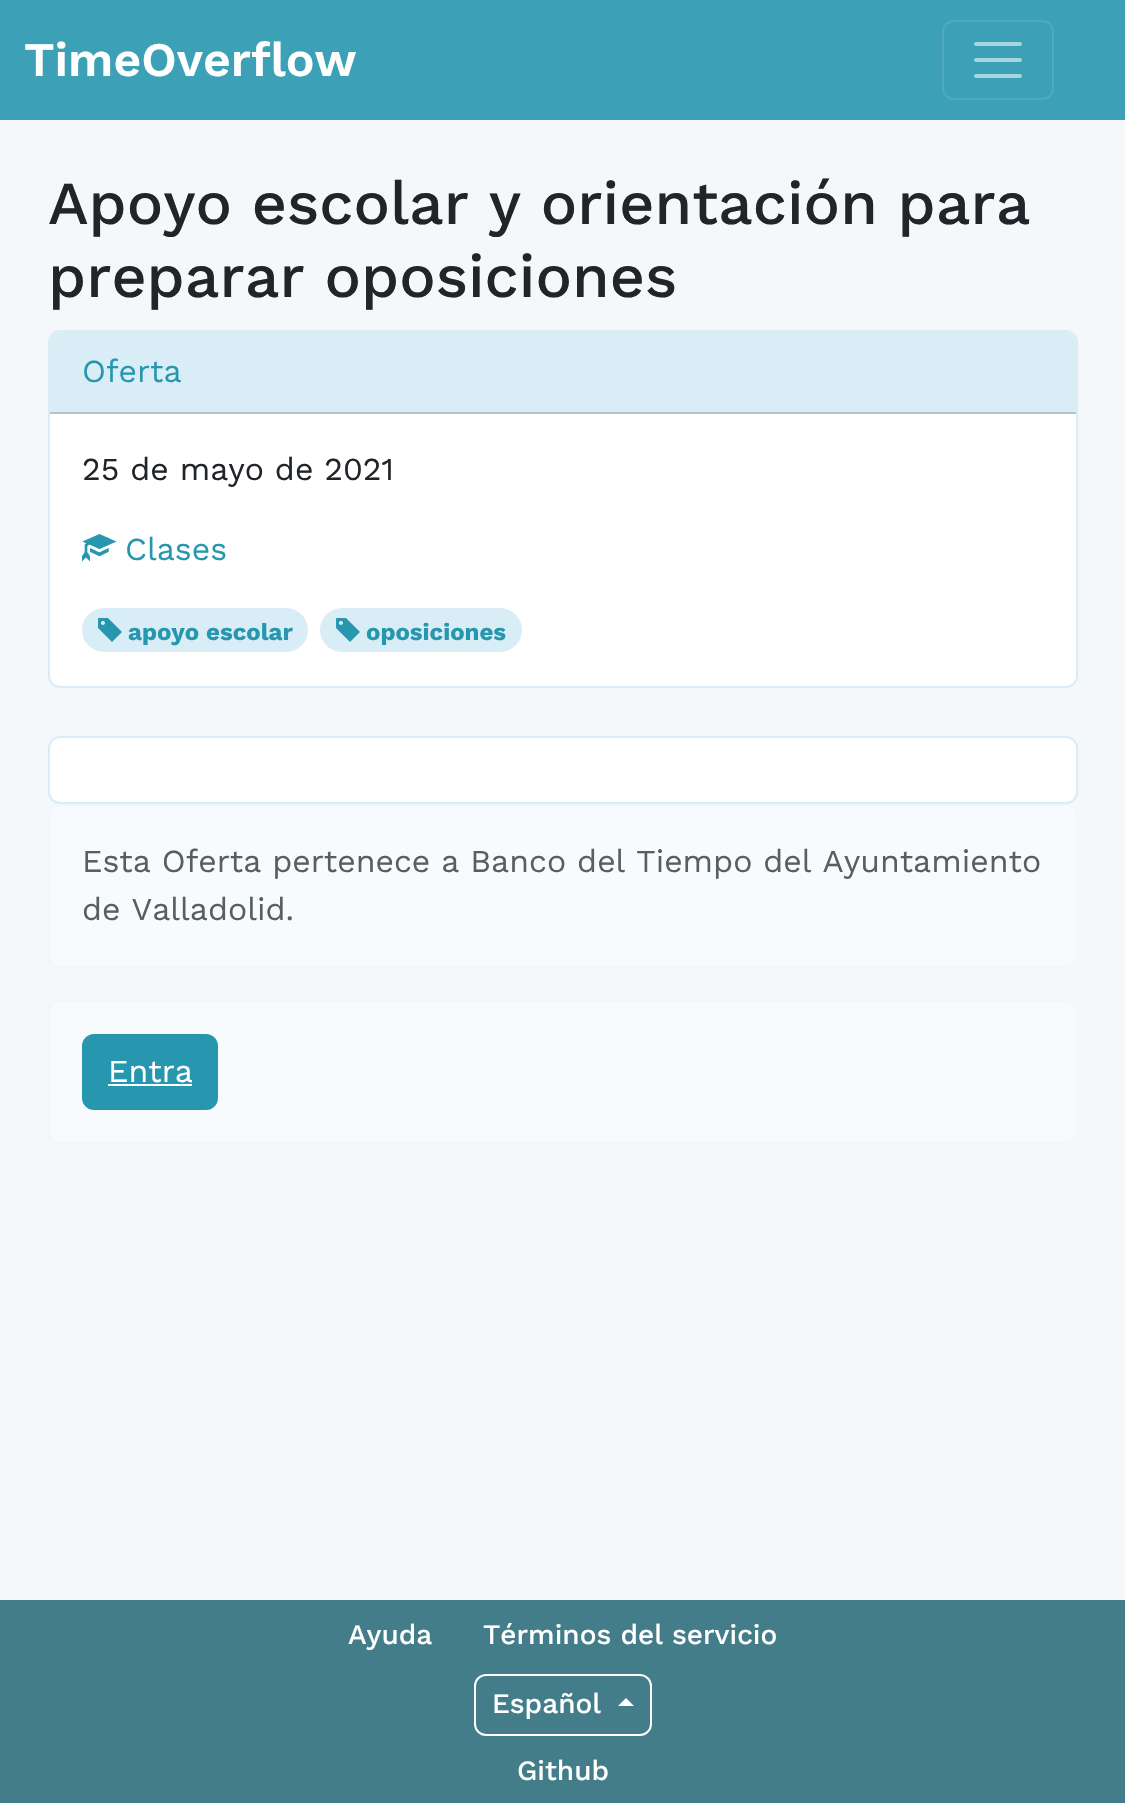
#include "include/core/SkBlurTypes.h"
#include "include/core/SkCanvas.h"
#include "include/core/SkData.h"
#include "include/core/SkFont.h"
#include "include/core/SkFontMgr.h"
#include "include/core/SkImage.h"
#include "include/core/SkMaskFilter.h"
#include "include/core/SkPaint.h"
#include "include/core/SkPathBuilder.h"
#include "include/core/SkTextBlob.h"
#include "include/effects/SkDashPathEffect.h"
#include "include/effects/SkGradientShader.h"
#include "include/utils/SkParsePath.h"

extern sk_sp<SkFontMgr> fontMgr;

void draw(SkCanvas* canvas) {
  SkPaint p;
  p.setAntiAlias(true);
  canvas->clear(SkColorSetRGB(245, 248, 250));
  p.setColor(SkColorSetRGB(60, 161, 182));
  canvas->drawRect(SkRect::MakeLTRB(0, 0, 1125, 120), p);
  p.setStyle(SkPaint::kStroke_Style);
  p.setStrokeWidth(2);
  p.setColor(SkColorSetRGB(80, 170, 189));
  canvas->drawRoundRect(SkRect::MakeLTRB(943, 21, 1053, 99), 11, 11, p);
  p.setStrokeWidth(4);
  p.setStrokeCap(SkPaint::kRound_Cap);
  p.setColor(SkColorSetRGB(167, 213, 222));
  canvas->drawPath(SkPathBuilder().moveTo(976, 44).lineTo(1020, 44).moveTo(976, 60).lineTo(1020, 60).moveTo(976, 76).lineTo(1020, 76).detach(), p);
  p.setStyle(SkPaint::kFill_Style);
  p.setColor(SK_ColorWHITE);
  canvas->drawRoundRect(SkRect::MakeLTRB(49, 331, 1077, 687), 11, 11, p);
  p.setStyle(SkPaint::kStroke_Style);
  p.setStrokeWidth(2);
  p.setStrokeCap(SkPaint::kButt_Cap);
  p.setColor(SkColorSetRGB(217, 237, 247));
  canvas->drawRoundRect(SkRect::MakeLTRB(49, 331, 1077, 687), 11, 11, p);
  p.setStyle(SkPaint::kFill_Style);
  canvas->drawPath(SkPathBuilder().moveTo(60, 332).lineTo(1066, 332).cubicTo(1071.5f, 332, 1076, 336.5f, 1076, 342).lineTo(1076, 414).lineTo(50, 414).lineTo(50, 342).cubicTo(50, 336.5f, 54.5f, 332, 60, 332).close().detach(), p);
  p.setColor(SkColorSetRGB(179, 195, 204));
  canvas->drawRect(SkRect::MakeLTRB(50, 412, 1076, 414), p);
  canvas->drawImageRect(SkImages::DeferredFromEncodedData(SkData::MakeFromFileName("images/1.png")), SkRect::MakeLTRB(82, 534, 117, 562), SkSamplingOptions());
  p.setColor(SkColorSetRGB(217, 237, 247));
  canvas->drawRoundRect(SkRect::MakeLTRB(82, 608, 308, 652), 22, 22, p);
  canvas->drawImageRect(SkImages::DeferredFromEncodedData(SkData::MakeFromFileName("images/2.png")), SkRect::MakeLTRB(98, 618, 122, 642), SkSamplingOptions());
  canvas->drawRoundRect(SkRect::MakeLTRB(320, 608, 522, 652), 22, 22, p);
  canvas->drawImageRect(SkImages::DeferredFromEncodedData(SkData::MakeFromFileName("images/2.png")), SkRect::MakeLTRB(336, 618, 360, 642), SkSamplingOptions());
  p.setColor(SK_ColorWHITE);
  canvas->drawRoundRect(SkRect::MakeLTRB(49, 737, 1077, 803), 11, 11, p);
  p.setStyle(SkPaint::kStroke_Style);
  p.setColor(SkColorSetRGB(217, 237, 247));
  canvas->drawRoundRect(SkRect::MakeLTRB(49, 737, 1077, 803), 11, 11, p);
  p.setStyle(SkPaint::kFill_Style);
  p.setColor(SkColorSetRGB(247, 251, 253));
  canvas->drawRoundRect(SkRect::MakeLTRB(49, 805, 1077, 967), 11, 11, p);
  p.setStyle(SkPaint::kStroke_Style);
  p.setColor(SkColorSetRGB(240, 248, 252));
  canvas->drawRoundRect(SkRect::MakeLTRB(49, 805, 1077, 967), 11, 11, p);
  p.setStyle(SkPaint::kFill_Style);
  p.setColor(SkColorSetRGB(247, 251, 253));
  canvas->drawRoundRect(SkRect::MakeLTRB(49, 1001, 1077, 1143), 11, 11, p);
  p.setStyle(SkPaint::kStroke_Style);
  p.setColor(SkColorSetRGB(240, 248, 252));
  canvas->drawRoundRect(SkRect::MakeLTRB(49, 1001, 1077, 1143), 11, 11, p);
  p.setStyle(SkPaint::kFill_Style);
  p.setColor(SkColorSetRGB(39, 151, 175));
  canvas->drawRoundRect(SkRect::MakeLTRB(83, 1035, 217, 1109), 11, 11, p);
  p.setStyle(SkPaint::kStroke_Style);
  canvas->drawRoundRect(SkRect::MakeLTRB(83, 1035, 217, 1109), 11, 11, p);
  p.setStyle(SkPaint::kFill_Style);
  p.setColor(SK_ColorWHITE);
  canvas->drawRect(SkRect::MakeLTRB(108, 1084, 192, 1086), p);
  p.setColor(SkColorSetRGB(66, 125, 137));
  canvas->drawRect(SkRect::MakeLTRB(0, 1600, 1125, 1803), p);
  p.setStyle(SkPaint::kStroke_Style);
  p.setColor(SK_ColorWHITE);
  canvas->drawRoundRect(SkRect::MakeLTRB(475, 1675, 651, 1735), 11, 11, p);
  p.setStyle(SkPaint::kFill_Style);
  canvas->drawPath(SkPathBuilder().moveTo(634, 1706).lineTo(618, 1706).lineTo(626, 1698).close().detach(), p);
  SkFont font1(fontMgr->matchFamilyStyle("Work Sans", SkFontStyle(600, SkFontStyle::kNormal_Width, SkFontStyle::kUpright_Slant)), 48);
  font1.setSubpixel(true);
  canvas->drawString("TimeOverflow", 24, 76, font1, p);
  SkFont font2(fontMgr->matchFamilyStyle("Work Sans", SkFontStyle(500, SkFontStyle::kNormal_Width, SkFontStyle::kUpright_Slant)), 60.9f);
  font2.setSubpixel(true);
  p.setColor(SkColorSetRGB(33, 37, 41));
  canvas->drawString("Apoyo escolar y orientación para", 48, 224, font2, p);
  canvas->drawString("preparar oposiciones", 48, 297, font2, p);
  SkFont font3(fontMgr->matchFamilyStyle("Work Sans", SkFontStyle::Normal()), 32);
  font3.setSubpixel(true);
  p.setColor(SkColorSetRGB(39, 151, 175));
  canvas->drawString("Oferta", 82, 382, font3, p);
  p.setColor(SkColorSetRGB(33, 37, 41));
  canvas->drawString("25 de mayo de 2021", 82, 480, font3, p);
  p.setColor(SkColorSetRGB(39, 151, 175));
  canvas->drawString("Clases", 125, 560, font3, p);
  SkFont font4(fontMgr->matchFamilyStyle("Work Sans", SkFontStyle::Bold()), 24);
  font4.setSubpixel(true);
  canvas->drawString("apoyo escolar", 128, 640, font4, p);
  canvas->drawString("oposiciones", 366, 640, font4, p);
  p.setColor(SkColorSetRGB(87, 95, 99));
  canvas->drawString("Esta Oferta pertenece a Banco del Tiempo del Ayuntamiento", 82, 872, font3, p);
  canvas->drawString("de Valladolid.", 82, 920, font3, p);
  p.setColor(SK_ColorWHITE);
  canvas->drawString("Entra", 108, 1082, font3, p);
  SkFont font5(fontMgr->matchFamilyStyle("Work Sans", SkFontStyle(500, SkFontStyle::kNormal_Width, SkFontStyle::kUpright_Slant)), 28);
  font5.setSubpixel(true);
  canvas->drawString("Ayuda", 348, 1644, font5, p);
  canvas->drawString("Términos del servicio", 483, 1644, font5, p);
  canvas->drawString("Español", 492, 1713, font5, p);
  canvas->drawString("Github", 517, 1780, font5, p);
}
